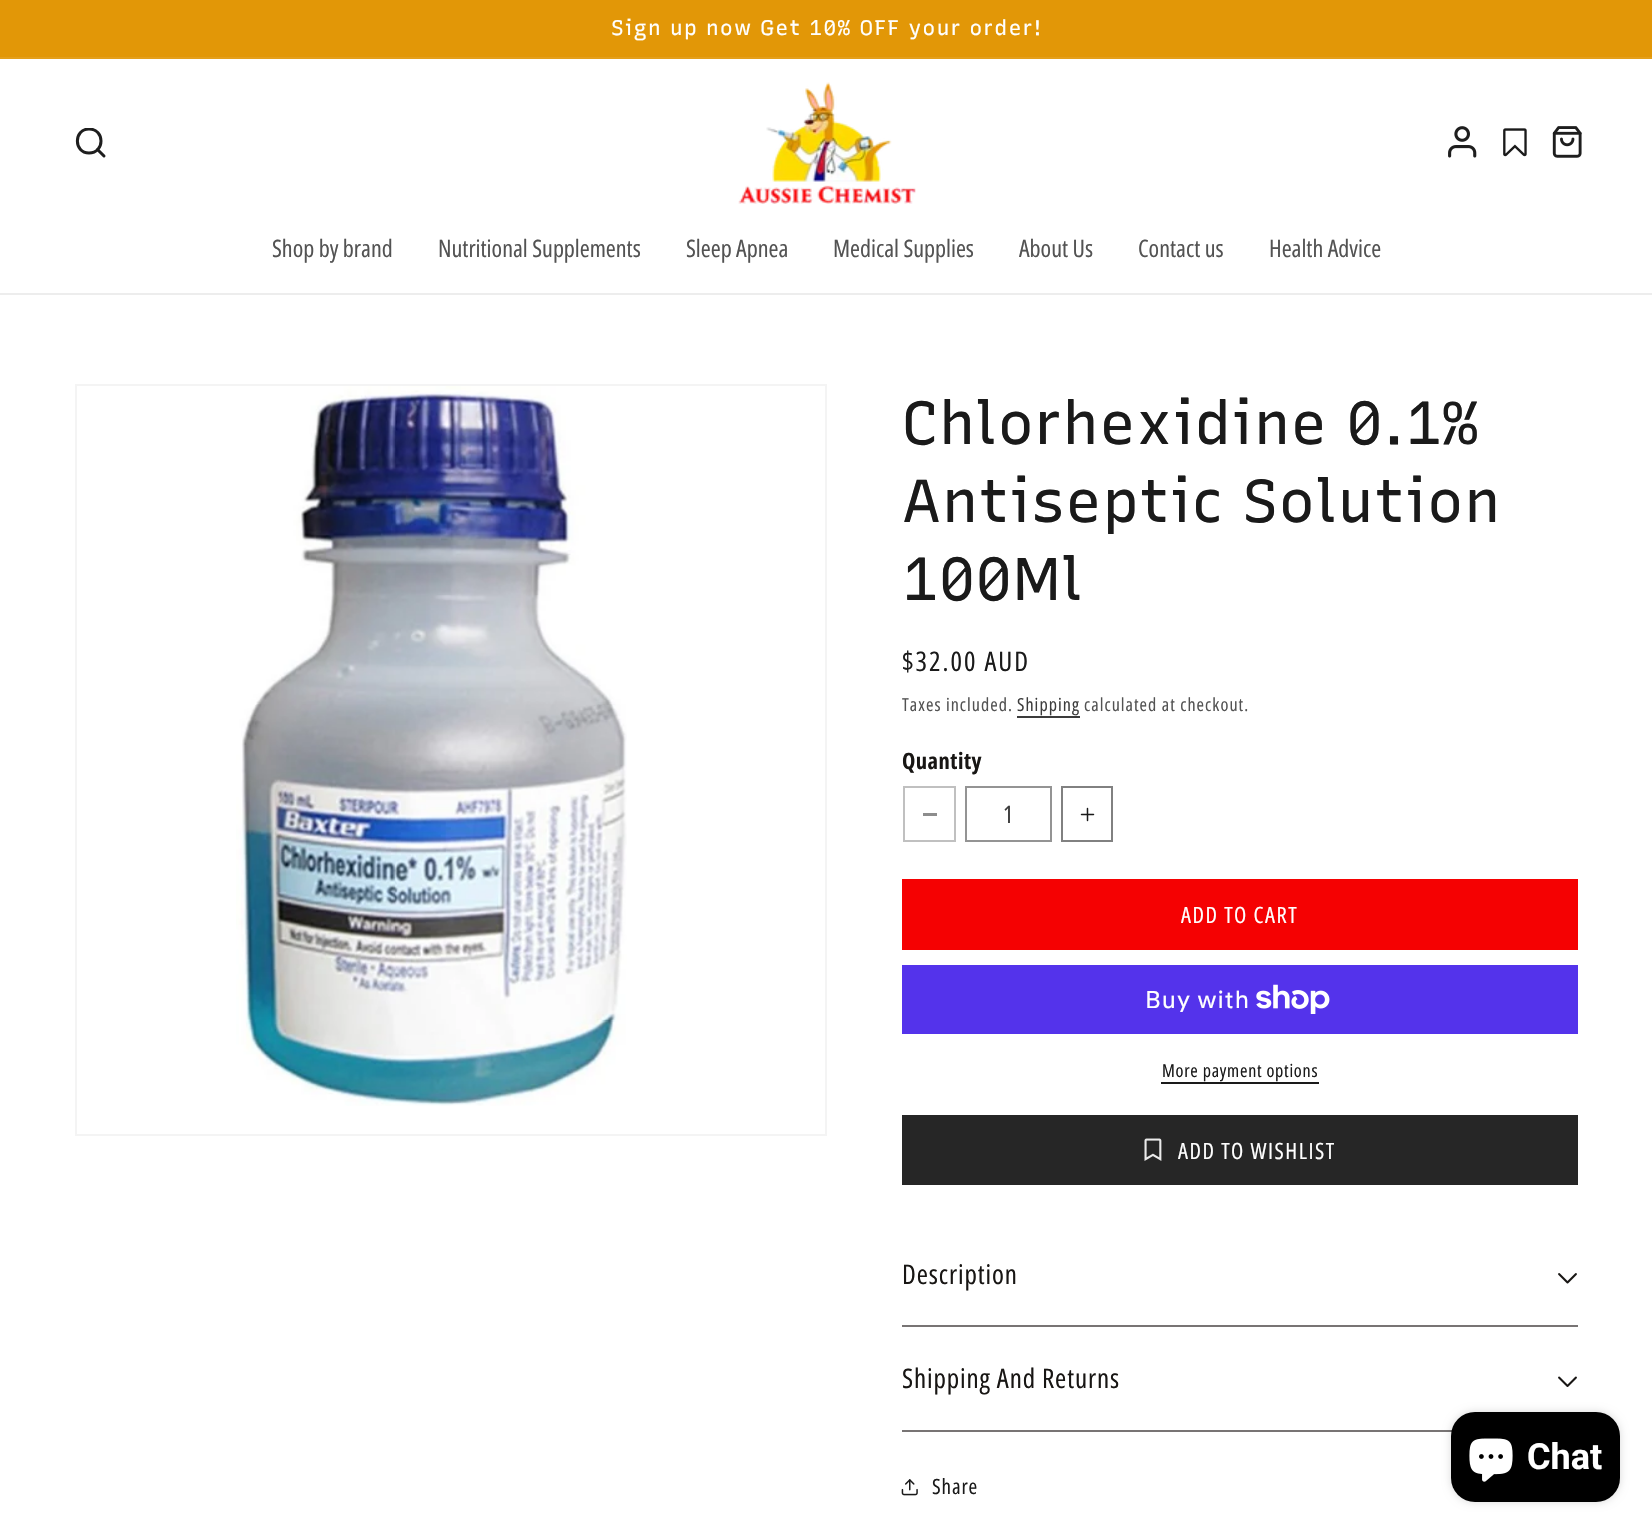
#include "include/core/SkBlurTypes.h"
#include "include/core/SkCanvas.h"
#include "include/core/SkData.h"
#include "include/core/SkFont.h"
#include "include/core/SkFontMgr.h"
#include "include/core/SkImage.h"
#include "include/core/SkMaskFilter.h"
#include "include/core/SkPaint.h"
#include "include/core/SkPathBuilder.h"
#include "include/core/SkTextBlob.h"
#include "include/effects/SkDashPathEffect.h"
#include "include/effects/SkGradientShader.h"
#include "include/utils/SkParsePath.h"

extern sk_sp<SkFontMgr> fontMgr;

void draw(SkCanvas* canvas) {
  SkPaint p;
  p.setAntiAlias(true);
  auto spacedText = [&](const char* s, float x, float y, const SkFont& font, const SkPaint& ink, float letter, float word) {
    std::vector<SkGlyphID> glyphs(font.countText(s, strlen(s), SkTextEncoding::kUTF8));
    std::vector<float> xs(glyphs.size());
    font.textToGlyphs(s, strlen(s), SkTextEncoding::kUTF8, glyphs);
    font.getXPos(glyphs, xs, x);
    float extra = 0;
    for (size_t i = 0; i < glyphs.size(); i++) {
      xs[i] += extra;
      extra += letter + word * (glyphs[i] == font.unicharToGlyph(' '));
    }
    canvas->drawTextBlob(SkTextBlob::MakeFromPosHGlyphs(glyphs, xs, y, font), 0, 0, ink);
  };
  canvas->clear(SK_ColorWHITE);
  p.setColor(SkColorSetRGB(226, 151, 7));
  canvas->drawRect(SkRect::MakeLTRB(0, 0, 1652, 57), p);
  p.setColor(SkColorSetRGB(228, 159, 27));
  canvas->drawRect(SkRect::MakeLTRB(0, 57, 1652, 59), p);
  p.setColor(SkColorSetRGB(237, 237, 237));
  canvas->drawRect(SkRect::MakeLTRB(0, 293, 1652, 295), p);
  canvas->save();
  canvas->clipRect(SkRect::MakeLTRB(75, 128, 107, 159));
  p.setStyle(SkPaint::kStroke_Style);
  p.setStrokeWidth(3);
  p.setStrokeCap(SkPaint::kRound_Cap);
  p.setStrokeJoin(SkPaint::kRound_Join);
  p.setColor(SkColorSetRGB(30, 30, 30));
  canvas->drawPath(SkPathBuilder().moveTo(89, 153).cubicTo(105, 153, 105, 129, 89, 129).cubicTo(73.5f, 129, 73.5f, 153, 89, 153).close().detach(), p);
  canvas->restore();
  canvas->drawPath(SkPathBuilder().moveTo(104, 156).lineTo(97.5f, 149.5f).detach(), p);
  canvas->drawImageRect(SkImages::DeferredFromEncodedData(SkData::MakeFromFileName("images/1.png")), SkRect::MakeLTRB(738, 82, 916, 204), SkSamplingOptions());
  canvas->drawImageRect(SkImages::DeferredFromEncodedData(SkData::MakeFromFileName("images/2.png")), SkRect::MakeLTRB(1448, 126, 1477, 158), SkSamplingOptions());
  canvas->drawImageRect(SkImages::DeferredFromEncodedData(SkData::MakeFromFileName("images/3.png")), SkRect::MakeLTRB(1503, 128, 1527, 157), SkSamplingOptions());
  canvas->drawImageRect(SkImages::DeferredFromEncodedData(SkData::MakeFromFileName("images/4.png")), SkRect::MakeLTRB(1552, 126, 1582, 158), SkSamplingOptions());
  p.setStrokeWidth(2);
  p.setStrokeCap(SkPaint::kButt_Cap);
  p.setStrokeJoin(SkPaint::kMiter_Join);
  p.setColor(SkColorSetRGB(244, 244, 244));
  canvas->drawRect(SkRect::MakeLTRB(76, 385, 826, 1135), p);
  canvas->drawImageRect(SkImages::DeferredFromEncodedData(SkData::MakeFromFileName("images/5.png")), SkRect::MakeLTRB(236, 386, 627, 1106), SkSamplingOptions());
  p.setStyle(SkPaint::kFill_Style);
  p.setColor(SkColorSetRGB(60, 60, 60));
  canvas->drawRect(SkRect::MakeLTRB(1017, 716, 1080, 718), p);
  p.setStyle(SkPaint::kStroke_Style);
  p.setColor(SkColorSetRGB(192, 192, 192));
  canvas->drawRect(SkRect::MakeLTRB(904, 787, 955, 841), p);
  p.setStyle(SkPaint::kFill_Style);
  p.setColor(SkColorSetRGB(141, 141, 141));
  canvas->drawRect(SkRect::MakeLTRB(923, 813, 937, 816), p);
  p.setStyle(SkPaint::kStroke_Style);
  p.setColor(SkColorSetRGB(148, 148, 148));
  canvas->drawRect(SkRect::MakeLTRB(966, 787, 1051, 841), p);
  p.setColor(SkColorSetRGB(129, 129, 129));
  canvas->drawRect(SkRect::MakeLTRB(1062, 787, 1112, 841), p);
  canvas->drawImageRect(SkImages::DeferredFromEncodedData(SkData::MakeFromFileName("images/6.png")), SkRect::MakeLTRB(1080, 807, 1095, 822), SkSamplingOptions());
  p.setStyle(SkPaint::kFill_Style);
  p.setColor(SkColorSetRGB(245, 1, 2));
  canvas->drawRect(SkRect::MakeLTRB(902, 879, 1578, 950), p);
  p.setColor(SkColorSetRGB(84, 51, 235));
  canvas->drawRect(SkRect::MakeLTRB(902, 965, 1578, 1034), p);
  canvas->drawImageRect(SkImages::DeferredFromEncodedData(SkData::MakeFromFileName("images/7.png")), SkRect::MakeLTRB(1256, 984, 1330, 1014), SkSamplingOptions());
  p.setColor(SkColorSetRGB(26, 26, 26));
  canvas->drawRect(SkRect::MakeLTRB(1161, 1082, 1319, 1084), p);
  p.setColor(SkColorSetRGB(38, 38, 38));
  canvas->drawRect(SkRect::MakeLTRB(902, 1115, 1578, 1185), p);
  canvas->drawImageRect(SkImages::DeferredFromEncodedData(SkData::MakeFromFileName("images/8.png")), SkRect::MakeLTRB(1144, 1138, 1162, 1161), SkSamplingOptions());
  p.setColor(SkColorSetRGB(120, 116, 116));
  canvas->drawRect(SkRect::MakeLTRB(902, 1325, 1578, 1327), p);
  canvas->drawImageRect(SkImages::DeferredFromEncodedData(SkData::MakeFromFileName("images/9.png")), SkRect::MakeLTRB(1558, 1273, 1577, 1284), SkSamplingOptions());
  canvas->drawRect(SkRect::MakeLTRB(902, 1430, 1452, 1432), p);
  canvas->drawImageRect(SkImages::DeferredFromEncodedData(SkData::MakeFromFileName("images/10.png")), SkRect::MakeLTRB(1558, 1376, 1577, 1387), SkSamplingOptions());
  canvas->drawImageRect(SkImages::DeferredFromEncodedData(SkData::MakeFromFileName("images/11.png")), SkRect::MakeLTRB(901, 1479, 918, 1496), SkSamplingOptions());
  p.setColor(SkColorSetARGB(38, 0, 0, 0));
  p.setMaskFilter(SkMaskFilter::MakeBlur(kNormal_SkBlurStyle, 4));
  canvas->drawRoundRect(SkRect::MakeLTRB(1451, 1412, 1620, 1502), 24, 24, p);
  p.setMaskFilter(nullptr);
  p.setColor(SK_ColorBLACK);
  canvas->drawRoundRect(SkRect::MakeLTRB(1451, 1412, 1620, 1502), 24, 24, p);
  canvas->drawImageRect(SkImages::DeferredFromEncodedData(SkData::MakeFromFileName("images/12.png")), SkRect::MakeLTRB(1469, 1438, 1513, 1482), SkSamplingOptions());
  SkFont font1(fontMgr->matchFamilyStyle("Recursive", SkFontStyle::Normal()), 21);
  font1.setSubpixel(true);
  p.setColor(SK_ColorWHITE);
  spacedText("Sign up now Get 10% OFF your order!", 611, 35, font1, p, 1.5f, 0);
  SkFont font2(fontMgr->matchFamilyStyle("Open Sans Condensed", SkFontStyle::Normal()), 24);
  font2.setSubpixel(true);
  p.setColor(SkColorSetRGB(83, 83, 83));
  canvas->drawString("Shop by brand", 272, 257, font2, p);
  canvas->drawString("Nutritional Supplements", 438, 257, font2, p);
  canvas->drawString("Sleep Apnea", 686, 257, font2, p);
  canvas->drawString("Medical Supplies", 833, 257, font2, p);
  canvas->drawString("About Us", 1019, 257, font2, p);
  canvas->drawString("Contact us", 1138, 257, font2, p);
  canvas->drawString("Health Advice", 1269, 257, font2, p);
  SkFont font3(fontMgr->matchFamilyStyle("Recursive", SkFontStyle::Normal()), 60);
  font3.setSubpixel(true);
  p.setColor(SkColorSetRGB(26, 26, 26));
  spacedText("Chlorhexidine 0.1%", 902, 444, font3, p, 0.9f, 0);
  spacedText("Antiseptic Solution", 902, 522, font3, p, 0.9f, 0);
  spacedText("100Ml", 902, 600, font3, p, 0.9f, 0);
  SkFont font4(fontMgr->matchFamilyStyle("Open Sans Condensed", SkFontStyle::Normal()), 27);
  font4.setSubpixel(true);
  spacedText("$32.00 AUD", 902, 671, font4, p, 2, 0);
  SkFont font5(fontMgr->matchFamilyStyle("Open Sans Condensed", SkFontStyle::Normal()), 18);
  font5.setSubpixel(true);
  p.setColor(SkColorSetRGB(83, 83, 83));
  spacedText("Taxes included.", 902, 711, font5, p, 1.05f, 0);
  p.setColor(SkColorSetRGB(60, 60, 60));
  spacedText("Shipping", 1017, 711, font5, p, 1.05f, 0);
  p.setColor(SkColorSetRGB(83, 83, 83));
  spacedText("calculated at checkout.", 1084, 711, font5, p, 1.05f, 0);
  SkFont font6(fontMgr->matchFamilyStyle("Open Sans Condensed", SkFontStyle::Bold()), 22.5f);
  font6.setSubpixel(true);
  p.setColor(SkColorSetRGB(24, 22, 20));
  spacedText("Quantity", 902, 769, font6, p, 0.5f, 0);
  p.setColor(SkColorSetRGB(60, 60, 60));
  canvas->drawString("1", 1003, 823, font2, p);
  SkFont font7(fontMgr->matchFamilyStyle("Open Sans Condensed", SkFontStyle::Normal()), 22.5f);
  font7.setSubpixel(true);
  p.setColor(SK_ColorWHITE);
  spacedText("ADD TO CART", 1181, 923, font7, p, 1.5f, 0);
  SkFont font8(fontMgr->matchFamilyStyle("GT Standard", SkFontStyle::Normal()), 24);
  font8.setSubpixel(true);
  spacedText("Buy with", 1145, 1008, font8, p, 0.9f, 0);
  p.setColor(SkColorSetRGB(26, 26, 26));
  spacedText("More payment options", 1162, 1077, font5, p, 0.75f, 0);
  p.setColor(SK_ColorWHITE);
  spacedText("ADD TO WISHLIST", 1178, 1159, font7, p, 1.5f, 0);
  p.setColor(SkColorSetRGB(24, 22, 20));
  spacedText("Description", 902, 1284, font4, p, 0.9f, 0);
  spacedText("Shipping And Returns", 902, 1388, font4, p, 0.9f, 0);
  SkFont font9(fontMgr->matchFamilyStyle("Open Sans Condensed", SkFontStyle::Normal()), 21);
  font9.setSubpixel(true);
  p.setColor(SkColorSetRGB(26, 26, 26));
  spacedText("Share", 932, 1494, font9, p, 0.9f, 0);
  SkFont font10(fontMgr->matchFamilyStyle("Roboto", SkFontStyle::Bold()), 36);
  font10.setSubpixel(true);
  p.setColor(SK_ColorWHITE);
  canvas->drawString("Chat", 1527, 1469, font10, p);
}
